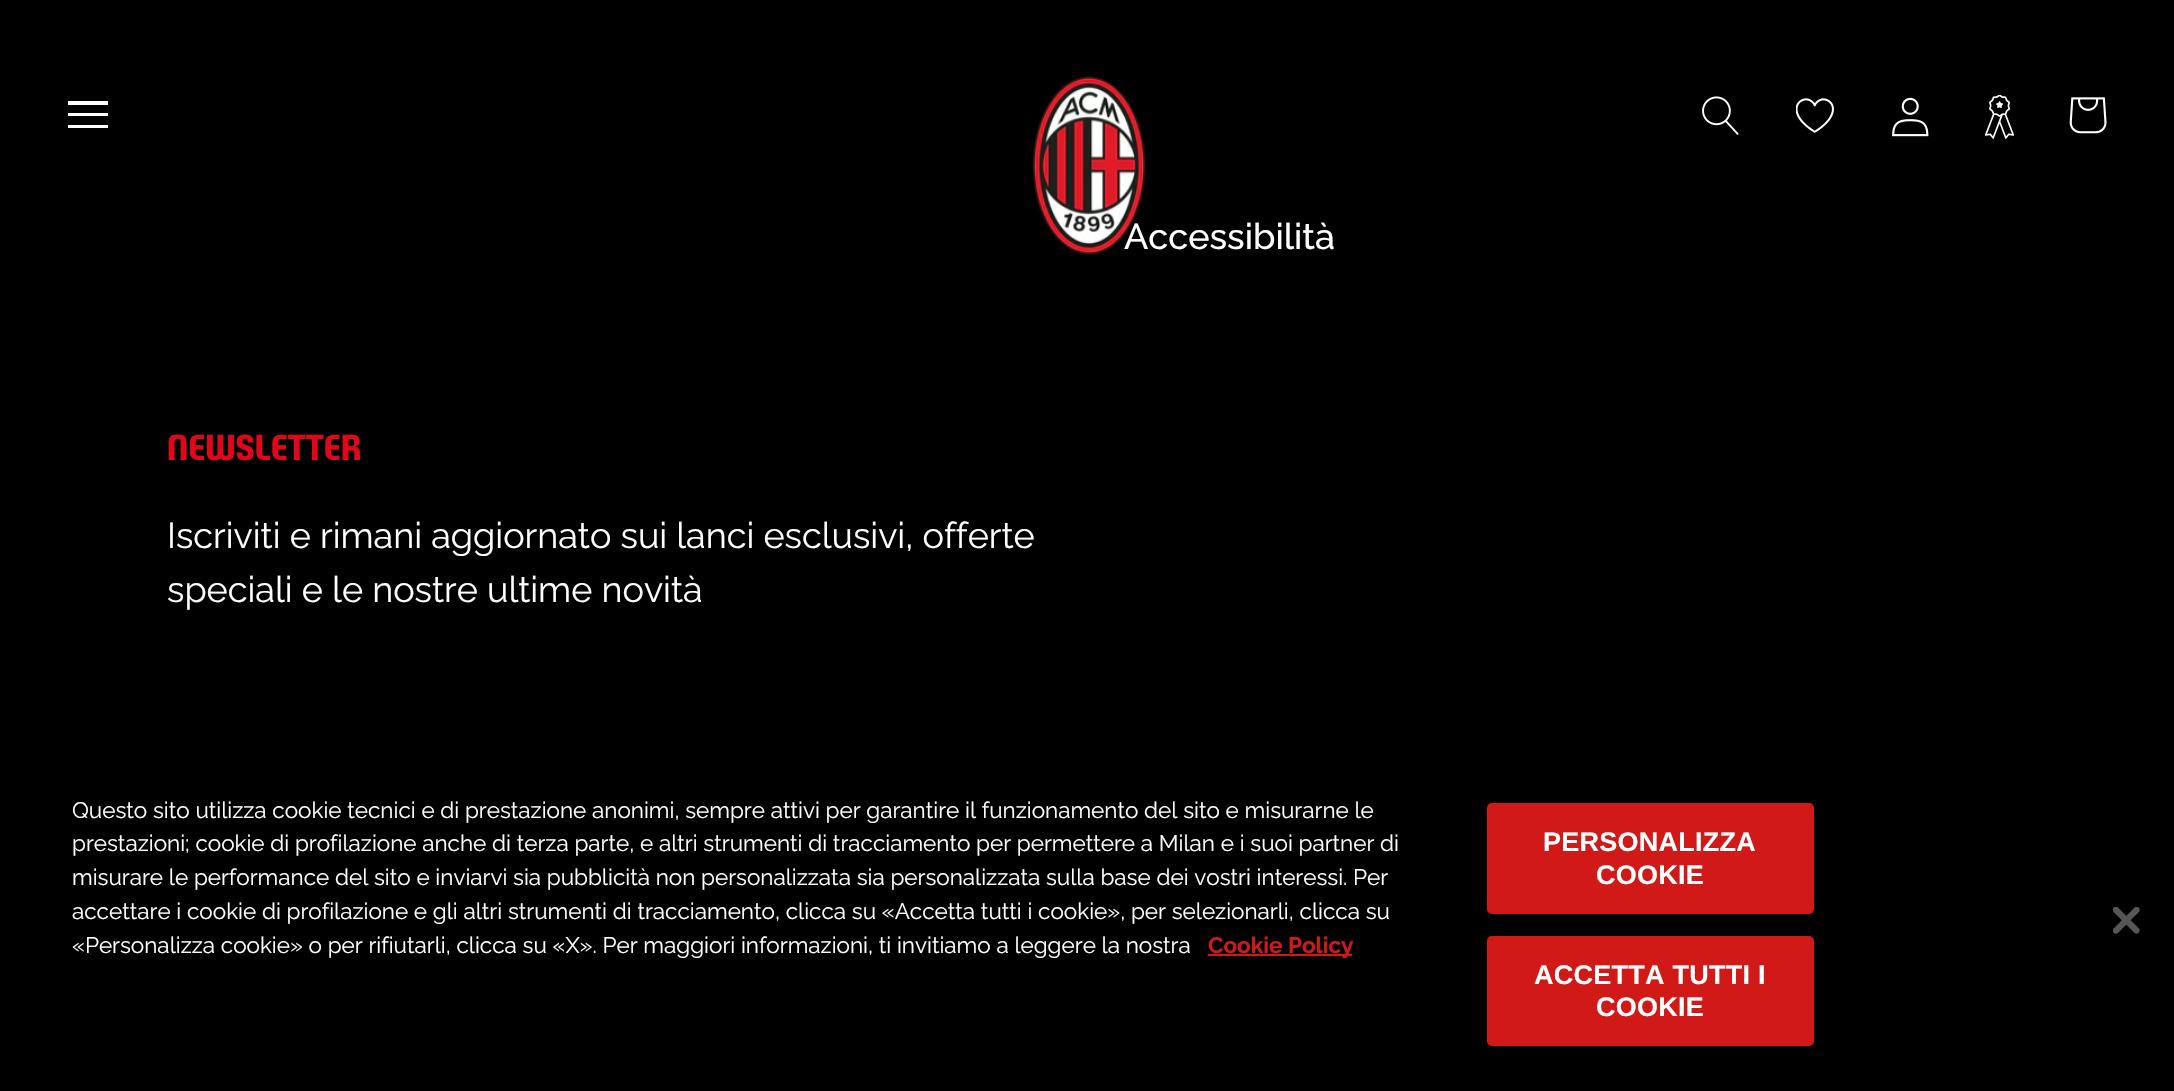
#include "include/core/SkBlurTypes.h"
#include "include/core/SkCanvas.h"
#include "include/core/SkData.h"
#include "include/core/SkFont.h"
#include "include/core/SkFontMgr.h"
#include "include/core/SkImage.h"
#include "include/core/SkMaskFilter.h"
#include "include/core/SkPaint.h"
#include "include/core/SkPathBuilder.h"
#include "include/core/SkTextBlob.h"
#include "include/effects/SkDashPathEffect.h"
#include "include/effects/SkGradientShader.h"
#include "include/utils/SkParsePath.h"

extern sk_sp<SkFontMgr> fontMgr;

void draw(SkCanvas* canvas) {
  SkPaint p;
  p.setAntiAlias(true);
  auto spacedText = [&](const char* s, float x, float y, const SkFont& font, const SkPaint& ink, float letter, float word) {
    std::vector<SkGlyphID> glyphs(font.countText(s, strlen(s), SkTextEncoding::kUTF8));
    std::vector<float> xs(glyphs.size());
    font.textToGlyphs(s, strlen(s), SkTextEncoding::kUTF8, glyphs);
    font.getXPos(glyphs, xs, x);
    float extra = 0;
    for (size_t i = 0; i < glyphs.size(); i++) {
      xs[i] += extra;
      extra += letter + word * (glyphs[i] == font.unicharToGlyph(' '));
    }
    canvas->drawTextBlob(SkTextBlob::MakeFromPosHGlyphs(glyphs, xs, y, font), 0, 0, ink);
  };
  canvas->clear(SK_ColorBLACK);
  p.setColor(SK_ColorWHITE);
  canvas->drawPath(SkPathBuilder().moveTo(68, 128).lineTo(68, 125).lineTo(108, 125).lineTo(108, 128).close().moveTo(68, 113).lineTo(108, 113).lineTo(108, 116).lineTo(68, 116).close().moveTo(68, 101).lineTo(108, 101).lineTo(108, 105).lineTo(68, 105).close().detach(), p);
  canvas->drawImageRect(SkImages::DeferredFromEncodedData(SkData::MakeFromFileName("images/2.png")), SkRect::MakeLTRB(1702, 96, 1739, 135), SkSamplingOptions());
  canvas->drawImageRect(SkImages::DeferredFromEncodedData(SkData::MakeFromFileName("images/3.png")), SkRect::MakeLTRB(1796, 98, 1834, 133), SkSamplingOptions());
  canvas->drawImageRect(SkImages::DeferredFromEncodedData(SkData::MakeFromFileName("images/4.png")), SkRect::MakeLTRB(1892, 97, 1929, 137), SkSamplingOptions());
  canvas->drawImageRect(SkImages::DeferredFromEncodedData(SkData::MakeFromFileName("images/5.png")), SkRect::MakeLTRB(1985, 95, 2014, 139), SkSamplingOptions());
  canvas->drawImageRect(SkImages::DeferredFromEncodedData(SkData::MakeFromFileName("images/6.png")), SkRect::MakeLTRB(2069, 97, 2107, 134), SkSamplingOptions());
  p.setColor(SkColorSetRGB(209, 25, 23));
  canvas->drawRect(SkRect::MakeLTRB(1208, 954, 1352, 956), p);
  canvas->drawRoundRect(SkRect::MakeLTRB(1489.5f, 805.5f, 1811.5f, 911.5f), 2.5f, 2.5f, p);
  p.setStyle(SkPaint::kStroke_Style);
  p.setStrokeWidth(5);
  canvas->drawRoundRect(SkRect::MakeLTRB(1489.5f, 805.5f, 1811.5f, 911.5f), 2.5f, 2.5f, p);
  p.setStyle(SkPaint::kFill_Style);
  canvas->drawRoundRect(SkRect::MakeLTRB(1489.5f, 938.5f, 1811.5f, 1043.5f), 2.5f, 2.5f, p);
  p.setStyle(SkPaint::kStroke_Style);
  canvas->drawRoundRect(SkRect::MakeLTRB(1489.5f, 938.5f, 1811.5f, 1043.5f), 2.5f, 2.5f, p);
  canvas->drawImageRect(SkImages::DeferredFromEncodedData(SkData::MakeFromFileName("images/7.png")), SkRect::MakeLTRB(2113, 907, 2140, 934), SkSamplingOptions());
  SkFont font1(fontMgr->matchFamilyStyle("Raleway", SkFontStyle(500, SkFontStyle::kNormal_Width, SkFontStyle::kUpright_Slant)), 36);
  font1.setSubpixel(true);
  p.setStyle(SkPaint::kFill_Style);
  p.setColor(SK_ColorWHITE);
  canvas->drawString("Accessibilità", 1124, 249, font1, p);
  canvas->drawImageRect(SkImages::DeferredFromEncodedData(SkData::MakeFromFileName("images/1.png")), SkRect::MakeLTRB(1032, 76, 1146, 255), SkSamplingOptions());
  SkFont font2(fontMgr->matchFamilyStyle("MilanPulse", SkFontStyle::Normal()), 31.5f);
  font2.setSubpixel(true);
  p.setColor(SkColorSetRGB(224, 7, 27));
  canvas->drawString("NEWSLETTER", 167, 460, font2, p);
  SkFont font3(fontMgr->matchFamilyStyle("Raleway", SkFontStyle::Normal()), 36);
  font3.setSubpixel(true);
  p.setColor(SK_ColorWHITE);
  canvas->drawString("Iscriviti e rimani aggiornato sui lanci esclusivi, offerte", 167, 548, font3, p);
  canvas->drawString("speciali e le nostre ultime novità", 167, 602, font3, p);
  SkFont font4(fontMgr->matchFamilyStyle("Raleway", SkFontStyle::Normal()), 22.5f);
  font4.setSubpixel(true);
  canvas->drawString("Questo sito utilizza cookie tecnici e di prestazione anonimi, sempre attivi per garantire il funzionamento del sito e misurarne le", 72, 818, font4, p);
  canvas->drawString("prestazioni; cookie di profilazione anche di terza parte, e altri strumenti di tracciamento per permettere a Milan e i suoi partner di", 72, 851, font4, p);
  canvas->drawString("misurare le performance del sito e inviarvi sia pubblicità non personalizzata sia personalizzata sulla base dei vostri interessi. Per", 72, 885, font4, p);
  canvas->drawString("accettare i cookie di profilazione e gli altri strumenti di tracciamento, clicca su «Accetta tutti i cookie», per selezionarli, clicca su", 72, 919, font4, p);
  canvas->drawString("«Personalizza cookie» o per rifiutarli, clicca su «X». Per maggiori informazioni, ti invitiamo a leggere la nostra", 72, 953, font4, p);
  SkFont font5(fontMgr->matchFamilyStyle("Raleway", SkFontStyle::Bold()), 22.5f);
  font5.setSubpixel(true);
  p.setColor(SkColorSetRGB(209, 25, 23));
  canvas->drawString("Cookie Policy", 1208, 953, font5, p);
  SkFont font6(fontMgr->matchFamilyStyle("Liberation Sans", SkFontStyle::Bold()), 27);
  font6.setSubpixel(true);
  p.setColor(SK_ColorWHITE);
  spacedText("PERSONALIZZA", 1543, 851, font6, p, 0.25f, 0);
  spacedText("COOKIE", 1596, 884, font6, p, 0.25f, 0);
  spacedText("ACCETTA TUTTI I", 1534, 984, font6, p, 0.25f, 0);
  spacedText("COOKIE", 1596, 1016, font6, p, 0.25f, 0);
}
